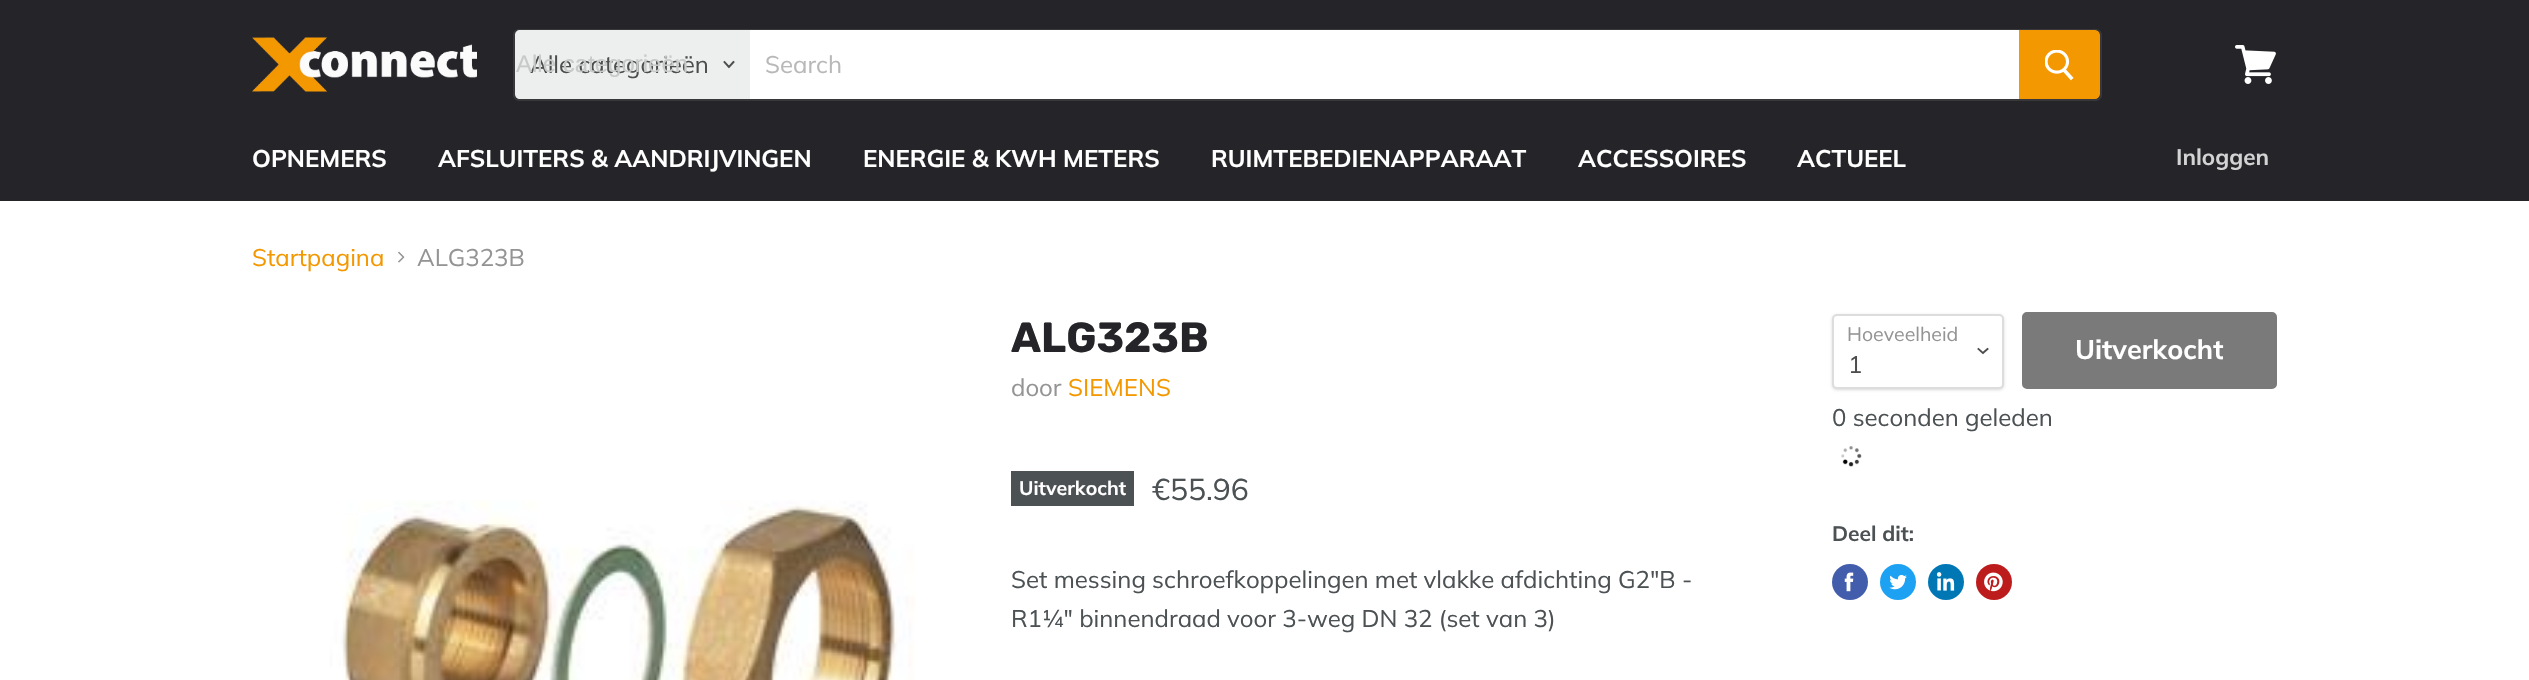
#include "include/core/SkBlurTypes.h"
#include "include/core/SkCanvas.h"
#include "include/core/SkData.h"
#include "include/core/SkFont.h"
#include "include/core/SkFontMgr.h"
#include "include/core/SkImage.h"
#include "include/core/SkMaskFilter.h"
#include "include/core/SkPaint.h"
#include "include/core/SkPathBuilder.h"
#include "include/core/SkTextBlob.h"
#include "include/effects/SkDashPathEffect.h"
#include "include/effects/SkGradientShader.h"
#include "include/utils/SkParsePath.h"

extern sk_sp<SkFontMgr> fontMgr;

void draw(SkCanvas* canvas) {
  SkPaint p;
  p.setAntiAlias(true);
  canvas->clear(SK_ColorWHITE);
  p.setColor(SkColorSetRGB(37, 37, 41));
  canvas->drawRect(SkRect::MakeLTRB(0, 0, 2529, 201), p);
  canvas->drawImageRect(SkImages::DeferredFromEncodedData(SkData::MakeFromFileName("images/1.png")), SkRect::MakeLTRB(252, 37, 477, 92), SkSamplingOptions());
  p.setStyle(SkPaint::kStroke_Style);
  p.setStrokeWidth(2);
  p.setColor(SkColorSetARGB(51, 128, 128, 128));
  canvas->drawRoundRect(SkRect::MakeLTRB(514, 30, 2101, 100), 5, 5, p);
  p.setStyle(SkPaint::kFill_Style);
  p.setColor(SkColorSetRGB(237, 238, 238));
  canvas->drawPath(SkPathBuilder().moveTo(520, 30).lineTo(750, 30).lineTo(750, 99).lineTo(520, 99).cubicTo(517, 99, 515, 97, 515, 94).lineTo(515, 35).cubicTo(515, 32, 517, 30, 520, 30).close().detach(), p);
  p.setStyle(SkPaint::kStroke_Style);
  p.setStrokeWidth(1.9f);
  p.setStrokeCap(SkPaint::kSquare_Cap);
  p.setColor(SkColorSetRGB(77, 77, 77));
  canvas->drawPath(SkPathBuilder().moveTo(729, 67).lineTo(733.5f, 62).moveTo(729, 67).lineTo(724.5f, 62).detach(), p);
  p.setStyle(SkPaint::kFill_Style);
  p.setColor(SK_ColorWHITE);
  canvas->drawRect(SkRect::MakeLTRB(750, 30, 2019, 99), p);
  p.setColor(SkColorSetRGB(243, 152, 1));
  canvas->drawPath(SkPathBuilder().moveTo(2020, 31).lineTo(2095, 31).cubicTo(2097, 31, 2099, 33, 2099, 35).lineTo(2099, 94).cubicTo(2099, 96, 2097, 98, 2095, 98).lineTo(2020, 98).close().detach(), p);
  p.setStyle(SkPaint::kStroke_Style);
  p.setStrokeWidth(2);
  p.setStrokeCap(SkPaint::kButt_Cap);
  canvas->drawPath(SkPathBuilder().moveTo(2020, 31).lineTo(2095, 31).cubicTo(2097, 31, 2099, 33, 2099, 35).lineTo(2099, 94).cubicTo(2099, 96, 2097, 98, 2095, 98).lineTo(2020, 98).close().detach(), p);
  canvas->drawImageRect(SkImages::DeferredFromEncodedData(SkData::MakeFromFileName("images/2.png")), SkRect::MakeLTRB(2045, 50, 2074, 81), SkSamplingOptions());
  canvas->drawImageRect(SkImages::DeferredFromEncodedData(SkData::MakeFromFileName("images/3.png")), SkRect::MakeLTRB(2235, 45, 2276, 84), SkSamplingOptions());
  canvas->drawImageRect(SkImages::DeferredFromEncodedData(SkData::MakeFromFileName("images/4.png")), SkRect::MakeLTRB(398, 251, 405, 263), SkSamplingOptions());
  p.setStyle(SkPaint::kFill_Style);
  p.setColor(SkColorSetRGB(76, 81, 84));
  canvas->drawRect(SkRect::MakeLTRB(1011, 471, 1134, 506), p);
  p.setColor(SkColorSetARGB(38, 0, 0, 0));
  p.setMaskFilter(SkMaskFilter::MakeBlur(kNormal_SkBlurStyle, 1.5f));
  canvas->drawRoundRect(SkRect::MakeLTRB(1832, 315, 2004, 390), 5, 5, p);
  p.setMaskFilter(nullptr);
  p.setColor(SK_ColorWHITE);
  canvas->drawRoundRect(SkRect::MakeLTRB(1833, 315, 2003, 388), 4, 4, p);
  p.setStyle(SkPaint::kStroke_Style);
  p.setColor(SkColorSetRGB(221, 221, 221));
  canvas->drawRoundRect(SkRect::MakeLTRB(1833, 315, 2003, 388), 4, 4, p);
  p.setStrokeWidth(1.9f);
  p.setStrokeCap(SkPaint::kSquare_Cap);
  p.setColor(SkColorSetRGB(77, 77, 77));
  canvas->drawPath(SkPathBuilder().moveTo(1983, 353).lineTo(1987.5f, 349).moveTo(1983, 353).lineTo(1978.5f, 349).detach(), p);
  p.setStyle(SkPaint::kFill_Style);
  p.setColor(SkColorSetRGB(122, 122, 122));
  canvas->drawRoundRect(SkRect::MakeLTRB(2023, 313, 2276, 388), 4, 4, p);
  p.setStyle(SkPaint::kStroke_Style);
  p.setStrokeWidth(2);
  p.setStrokeCap(SkPaint::kButt_Cap);
  canvas->drawRoundRect(SkRect::MakeLTRB(2023, 313, 2276, 388), 4, 4, p);
  canvas->drawImageRect(SkImages::DeferredFromEncodedData(SkData::MakeFromFileName("images/5.png")), SkRect::MakeLTRB(1841, 446, 1862, 467), SkSamplingOptions());
  p.setStyle(SkPaint::kFill_Style);
  p.setColor(SkColorSetRGB(66, 93, 171));
  canvas->drawCircle(1850, 582, 18, p);
  canvas->drawImageRect(SkImages::DeferredFromEncodedData(SkData::MakeFromFileName("images/6.png")), SkRect::MakeLTRB(1844, 572, 1854, 592), SkSamplingOptions());
  p.setColor(SkColorSetRGB(29, 161, 242));
  canvas->drawCircle(1898, 582, 18, p);
  canvas->drawImageRect(SkImages::DeferredFromEncodedData(SkData::MakeFromFileName("images/7.png")), SkRect::MakeLTRB(1889, 574, 1907, 590), SkSamplingOptions());
  p.setColor(SkColorSetRGB(0, 119, 181));
  canvas->drawCircle(1946, 582, 18, p);
  canvas->drawImageRect(SkImages::DeferredFromEncodedData(SkData::MakeFromFileName("images/8.png")), SkRect::MakeLTRB(1936, 572, 1955, 591), SkSamplingOptions());
  p.setColor(SkColorSetRGB(189, 28, 28));
  canvas->drawCircle(1994, 582, 18, p);
  canvas->drawImageRect(SkImages::DeferredFromEncodedData(SkData::MakeFromFileName("images/9.png")), SkRect::MakeLTRB(1984, 572, 2003, 592), SkSamplingOptions());
  canvas->drawImageRect(SkImages::DeferredFromEncodedData(SkData::MakeFromFileName("images/10.png")), SkRect::MakeLTRB(330, 500, 915, 680), SkSamplingOptions());
  SkFont font1(fontMgr->matchFamilyStyle("Muli", SkFontStyle::Normal()), 24);
  font1.setSubpixel(true);
  p.setColor(SkColorSetRGB(77, 77, 77));
  canvas->drawString("Alle categorieën", 530, 73, font1, p);
  SkFont font2(fontMgr->matchFamilyStyle("Liberation Sans", SkFontStyle::Normal()), 24);
  font2.setSubpixel(true);
  p.setColor(SkColorSetRGB(200, 201, 201));
  canvas->drawString("Alle categorieën", 516, 72, font2, p);
  p.setColor(SkColorSetRGB(184, 184, 184));
  canvas->drawString("Search", 765, 73, font1, p);
  SkFont font3(fontMgr->matchFamilyStyle("Muli", SkFontStyle::Bold()), 24);
  font3.setSubpixel(true);
  p.setColor(SK_ColorWHITE);
  canvas->drawString("OPNEMERS", 252, 167, font3, p);
  canvas->drawString("AFSLUITERS & AANDRIJVINGEN", 438, 167, font3, p);
  canvas->drawString("ENERGIE & KWH METERS", 863, 167, font3, p);
  canvas->drawString("RUIMTEBEDIENAPPARAAT", 1211, 167, font3, p);
  canvas->drawString("ACCESSOIRES", 1578, 167, font3, p);
  canvas->drawString("ACTUEEL", 1797, 167, font3, p);
  SkFont font4(fontMgr->matchFamilyStyle("Muli", SkFontStyle::Bold()), 22.5f);
  font4.setSubpixel(true);
  p.setColor(SkColorSetRGB(211, 211, 212));
  canvas->drawString("Inloggen", 2176, 165, font4, p);
  p.setColor(SkColorSetRGB(243, 152, 1));
  canvas->drawString("Startpagina", 252, 266, font1, p);
  p.setColor(SkColorSetRGB(148, 148, 148));
  canvas->drawString("ALG323B", 417, 266, font1, p);
  SkFont font5(fontMgr->matchFamilyStyle("Rubik", SkFontStyle::Bold()), 42);
  font5.setSubpixel(true);
  p.setColor(SkColorSetRGB(37, 37, 41));
  canvas->drawString("ALG323B", 1011, 352, font5, p);
  p.setColor(SkColorSetRGB(148, 148, 148));
  canvas->drawString("door", 1011, 396, font1, p);
  p.setColor(SkColorSetRGB(243, 152, 1));
  canvas->drawString("SIEMENS", 1068, 396, font1, p);
  SkFont font6(fontMgr->matchFamilyStyle("Muli", SkFontStyle::Bold()), 19.5f);
  font6.setSubpixel(true);
  p.setColor(SK_ColorWHITE);
  canvas->drawString("Uitverkocht", 1019, 495, font6, p);
  SkFont font7(fontMgr->matchFamilyStyle("Muli", SkFontStyle::Normal()), 30);
  font7.setSubpixel(true);
  p.setColor(SkColorSetRGB(76, 81, 84));
  canvas->drawString("€55.96", 1152, 500, font7, p);
  canvas->drawString("Set messing schroefkoppelingen met vlakke afdichting G2\"B -", 1011, 588, font1, p);
  canvas->drawString("R1¼\" binnendraad voor 3-weg DN 32 (set van 3)", 1011, 627, font1, p);
  SkFont font8(fontMgr->matchFamilyStyle("Muli", SkFontStyle::Normal()), 19.5f);
  font8.setSubpixel(true);
  p.setColor(SkColorSetRGB(148, 148, 148));
  canvas->drawString("Hoeveelheid", 1847, 341, font8, p);
  p.setColor(SkColorSetRGB(77, 77, 77));
  canvas->drawString("1", 1848, 373, font1, p);
  SkFont font9(fontMgr->matchFamilyStyle("Muli", SkFontStyle::Bold()), 27);
  font9.setSubpixel(true);
  p.setColor(SK_ColorWHITE);
  canvas->drawString("Uitverkocht", 2075, 359, font9, p);
  p.setColor(SkColorSetRGB(76, 81, 84));
  canvas->drawString("0 seconden geleden", 1832, 426, font1, p);
  SkFont font10(fontMgr->matchFamilyStyle("Muli", SkFontStyle::Bold()), 21);
  font10.setSubpixel(true);
  canvas->drawString("Deel dit:", 1832, 541, font10, p);
}
